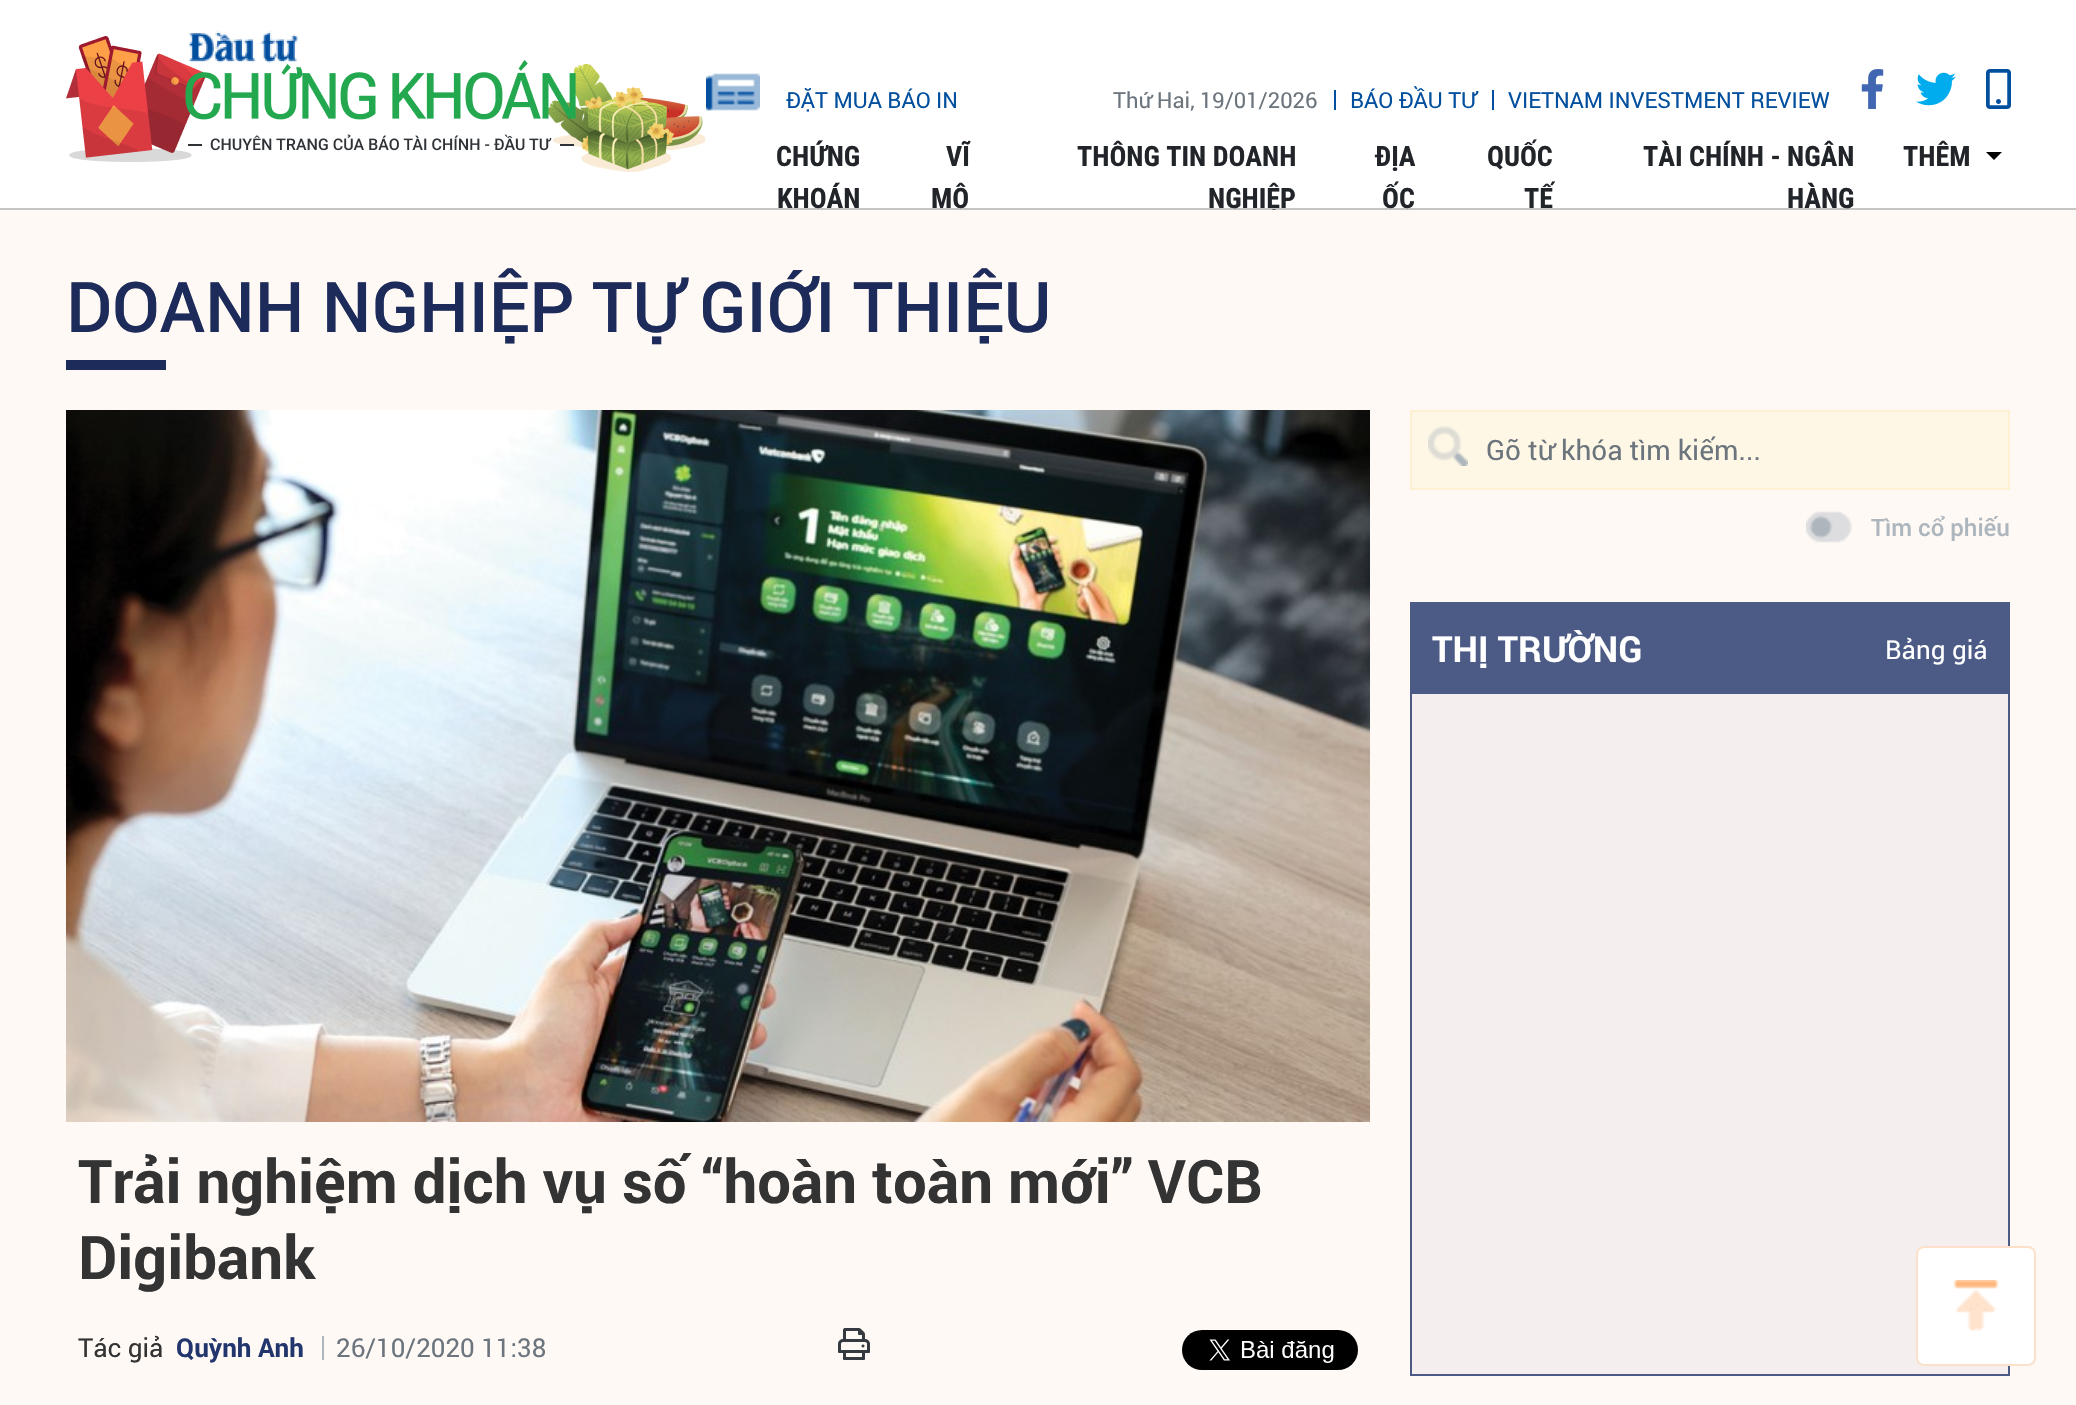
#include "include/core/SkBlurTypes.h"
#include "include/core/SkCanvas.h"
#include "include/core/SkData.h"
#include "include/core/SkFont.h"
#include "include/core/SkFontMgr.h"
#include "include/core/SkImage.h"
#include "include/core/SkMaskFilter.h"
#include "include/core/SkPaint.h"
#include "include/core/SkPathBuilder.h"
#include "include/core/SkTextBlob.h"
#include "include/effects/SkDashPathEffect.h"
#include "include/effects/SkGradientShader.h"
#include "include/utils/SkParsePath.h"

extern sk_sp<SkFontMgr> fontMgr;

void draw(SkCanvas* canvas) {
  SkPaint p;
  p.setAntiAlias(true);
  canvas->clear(SK_ColorWHITE);
  p.setColor(SkColorSetRGB(196, 196, 196));
  canvas->drawRect(SkRect::MakeLTRB(0, 208, 2076, 210), p);
  canvas->drawImageRect(SkImages::DeferredFromEncodedData(SkData::MakeFromFileName("images/1.png")), SkRect::MakeLTRB(66, 30, 706, 172), SkSamplingOptions());
  canvas->drawImageRect(SkImages::DeferredFromEncodedData(SkData::MakeFromFileName("images/2.png")), SkRect::MakeLTRB(706, 73, 760, 111), SkSamplingOptions());
  p.setColor(SkColorSetRGB(2, 79, 158));
  canvas->drawRect(SkRect::MakeLTRB(1334, 90, 1336, 110), p);
  canvas->drawRect(SkRect::MakeLTRB(1492, 90, 1494, 110), p);
  canvas->drawImageRect(SkImages::DeferredFromEncodedData(SkData::MakeFromFileName("images/3.png")), SkRect::MakeLTRB(1861, 69, 1884, 109), SkSamplingOptions());
  canvas->drawImageRect(SkImages::DeferredFromEncodedData(SkData::MakeFromFileName("images/4.png")), SkRect::MakeLTRB(1916, 72, 1956, 106), SkSamplingOptions());
  canvas->drawImageRect(SkImages::DeferredFromEncodedData(SkData::MakeFromFileName("images/5.png")), SkRect::MakeLTRB(1986, 69, 2011, 109), SkSamplingOptions());
  p.setColor(SK_ColorBLACK);
  canvas->drawPath(SkPathBuilder().moveTo(1986, 152).lineTo(2002, 152).lineTo(1994, 160).close().detach(), p);
  SkFont font1(fontMgr->matchFamilyStyle("Roboto", SkFontStyle::Normal()), 22);
  font1.setSubpixel(true);
  p.setColor(SkColorSetRGB(2, 79, 158));
  canvas->drawString("ĐẶT MUA BÁO IN", 786, 108, font1, p);
  p.setColor(SkColorSetRGB(108, 117, 125));
  canvas->drawString("Thứ Hai, 19/01/2026", 1113, 108, font1, p);
  p.setColor(SkColorSetRGB(2, 79, 158));
  canvas->drawString("BÁO ĐẦU TƯ", 1350, 108, font1, p);
  canvas->drawString("VIETNAM INVESTMENT REVIEW", 1508, 108, font1, p);
  SkFont font2(fontMgr->matchFamilyStyle("Roboto Condensed", SkFontStyle::Bold()), 28);
  font2.setSubpixel(true);
  p.setColor(SkColorSetRGB(33, 37, 41));
  canvas->drawString("CHỨNG", 776, 166, font2, p);
  canvas->drawString("KHOÁN", 777, 208, font2, p);
  canvas->drawString("VĨ", 946, 166, font2, p);
  canvas->drawString("MÔ", 931, 208, font2, p);
  canvas->drawString("THÔNG TIN DOANH", 1077, 166, font2, p);
  canvas->drawString("NGHIỆP", 1208, 208, font2, p);
  canvas->drawString("ĐỊA", 1375, 166, font2, p);
  canvas->drawString("ỐC", 1382, 208, font2, p);
  canvas->drawString("QUỐC", 1487, 166, font2, p);
  canvas->drawString("TẾ", 1524, 208, font2, p);
  canvas->drawString("TÀI CHÍNH - NGÂN", 1643, 166, font2, p);
  canvas->drawString("HÀNG", 1787, 208, font2, p);
  canvas->drawString("THÊM", 1903, 166, font2, p);
  p.setColor(SkColorSetRGB(254, 249, 245));
  canvas->drawRect(SkRect::MakeLTRB(0, 210, 2076, 1405), p);
  SkFont font3(fontMgr->matchFamilyStyle("Roboto", SkFontStyle(500, SkFontStyle::kNormal_Width, SkFontStyle::kUpright_Slant)), 70);
  font3.setSubpixel(true);
  p.setColor(SkColorSetRGB(28, 43, 89));
  canvas->drawString("DOANH NGHIỆP TỰ GIỚI THIỆU", 66, 332, font3, p);
  canvas->drawRect(SkRect::MakeLTRB(66, 360, 166, 370), p);
  p.setColor(SkColorSetRGB(254, 247, 229));
  canvas->drawRect(SkRect::MakeLTRB(1411, 411, 2009, 489), p);
  p.setStyle(SkPaint::kStroke_Style);
  p.setStrokeWidth(2);
  p.setColor(SkColorSetRGB(254, 241, 209));
  canvas->drawRect(SkRect::MakeLTRB(1411, 411, 2009, 489), p);
  canvas->drawImageRect(SkImages::DeferredFromEncodedData(SkData::MakeFromFileName("images/6.png")), SkRect::MakeLTRB(1428, 426, 1468, 466), SkSamplingOptions());
  SkFont font4(fontMgr->matchFamilyStyle("Roboto", SkFontStyle::Normal()), 28);
  font4.setSubpixel(true);
  p.setStyle(SkPaint::kFill_Style);
  p.setColor(SkColorSetRGB(108, 117, 125));
  canvas->drawString("Gõ từ khóa tìm kiếm...", 1486, 460, font4, p);
  canvas->drawImageRect(SkImages::DeferredFromEncodedData(SkData::MakeFromFileName("images/7.png")), SkRect::MakeLTRB(1806, 511, 1852, 543), SkSamplingOptions());
  SkFont font5(fontMgr->matchFamilyStyle("Roboto", SkFontStyle(500, SkFontStyle::kNormal_Width, SkFontStyle::kUpright_Slant)), 24);
  font5.setSubpixel(true);
  p.setColor(SkColorSetRGB(173, 181, 189));
  canvas->drawString("Tìm cổ phiếu", 1871, 536, font5, p);
  p.setColor(SkColorSetRGB(244, 238, 239));
  canvas->drawRect(SkRect::MakeLTRB(1412, 694, 2008, 1374), p);
  p.setStyle(SkPaint::kStroke_Style);
  p.setColor(SkColorSetRGB(76, 90, 134));
  canvas->drawRect(SkRect::MakeLTRB(1411, 603, 2009, 1375), p);
  p.setStyle(SkPaint::kFill_Style);
  canvas->drawRect(SkRect::MakeLTRB(1412, 604, 2008, 694), p);
  SkFont font6(fontMgr->matchFamilyStyle("Roboto", SkFontStyle::Bold()), 36);
  font6.setSubpixel(true);
  p.setColor(SK_ColorWHITE);
  canvas->drawString("THỊ TRƯỜNG", 1432, 662, font6, p);
  SkFont font7(fontMgr->matchFamilyStyle("Roboto", SkFontStyle::Normal()), 26);
  font7.setSubpixel(true);
  canvas->drawString("Bảng giá", 1885, 659, font7, p);
  canvas->drawImageRect(SkImages::DeferredFromEncodedData(SkData::MakeFromFileName("images/8.png")), SkRect::MakeLTRB(66, 410, 1370, 1122), SkSamplingOptions());
  SkFont font8(fontMgr->matchFamilyStyle("Roboto", SkFontStyle::Bold()), 60);
  font8.setSubpixel(true);
  p.setColor(SkColorSetRGB(51, 51, 51));
  canvas->drawString("Trải nghiệm dịch vụ số “hoàn toàn mới” VCB", 78, 1203, font8, p);
  canvas->drawString("Digibank", 78, 1279, font8, p);
  canvas->drawString("Tác giả", 78, 1357, font7, p);
  SkFont font9(fontMgr->matchFamilyStyle("Roboto", SkFontStyle::Bold()), 26);
  font9.setSubpixel(true);
  p.setColor(SkColorSetRGB(34, 53, 108));
  canvas->drawString("Quỳnh Anh", 176, 1357, font9, p);
  p.setColor(SkColorSetRGB(173, 181, 189));
  canvas->drawRect(SkRect::MakeLTRB(322, 1336, 324, 1360), p);
  p.setColor(SkColorSetRGB(108, 117, 125));
  canvas->drawString("26/10/2020 11:38", 336, 1357, font7, p);
  canvas->drawImageRect(SkImages::DeferredFromEncodedData(SkData::MakeFromFileName("images/9.png")), SkRect::MakeLTRB(838, 1328, 870, 1360), SkSamplingOptions());
  canvas->drawImageRect(SkImages::DeferredFromEncodedData(SkData::MakeFromFileName("images/10.png")), SkRect::MakeLTRB(1182, 1330, 1358, 1370), SkSamplingOptions());
  p.setColor(SK_ColorWHITE);
  canvas->drawRoundRect(SkRect::MakeLTRB(1916, 1246, 2036, 1366), 8, 8, p);
  canvas->drawImageRect(SkImages::DeferredFromEncodedData(SkData::MakeFromFileName("images/11.png")), SkRect::MakeLTRB(1953, 1280, 1999, 1331), SkSamplingOptions());
  p.setStyle(SkPaint::kStroke_Style);
  p.setColor(SkColorSetRGB(253, 224, 201));
  canvas->drawRoundRect(SkRect::MakeLTRB(1917, 1247, 2035, 1365), 7, 7, p);
}
